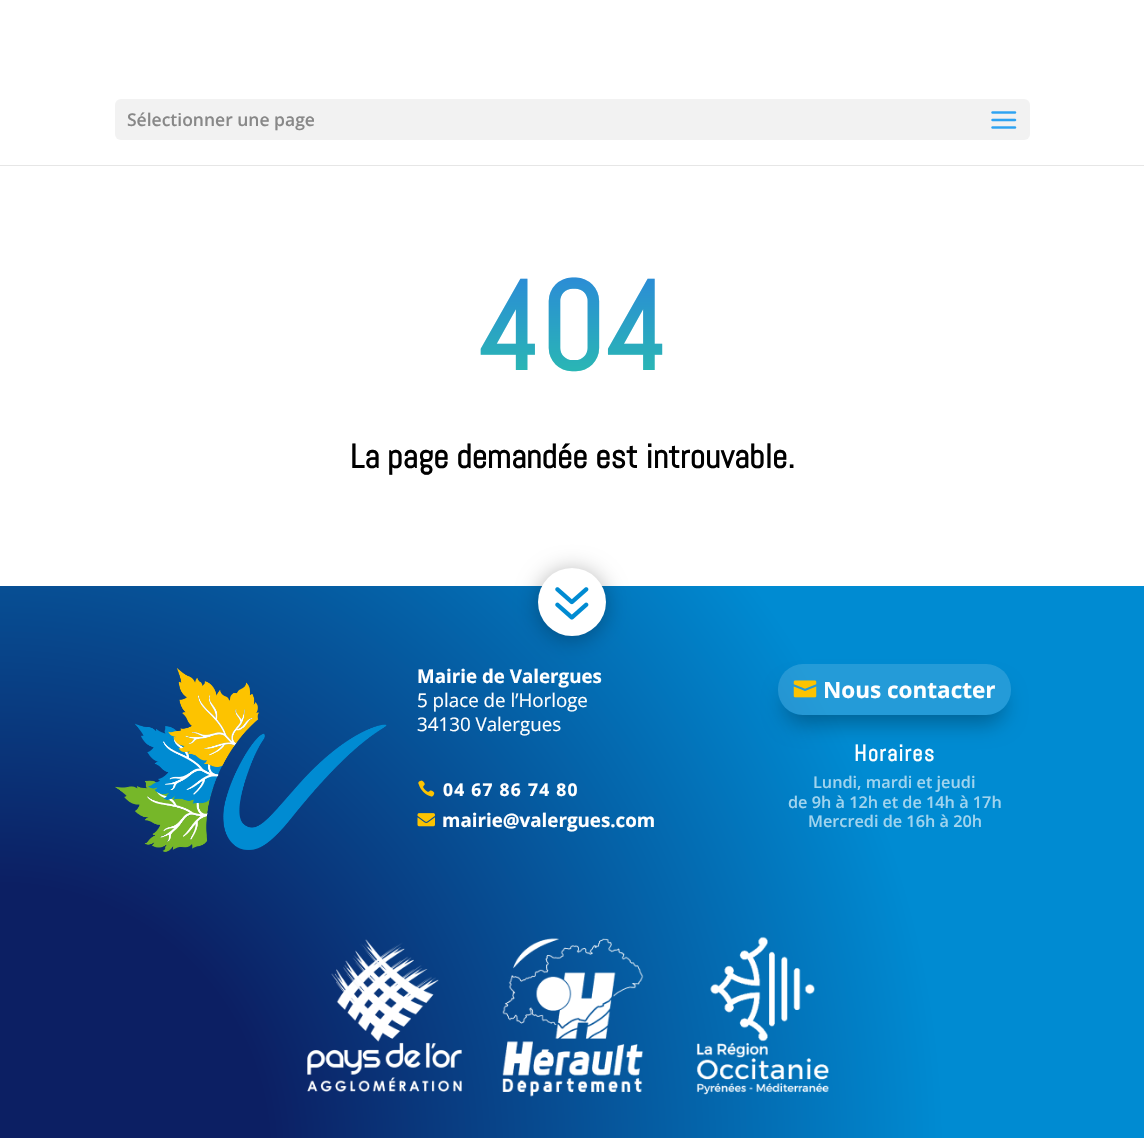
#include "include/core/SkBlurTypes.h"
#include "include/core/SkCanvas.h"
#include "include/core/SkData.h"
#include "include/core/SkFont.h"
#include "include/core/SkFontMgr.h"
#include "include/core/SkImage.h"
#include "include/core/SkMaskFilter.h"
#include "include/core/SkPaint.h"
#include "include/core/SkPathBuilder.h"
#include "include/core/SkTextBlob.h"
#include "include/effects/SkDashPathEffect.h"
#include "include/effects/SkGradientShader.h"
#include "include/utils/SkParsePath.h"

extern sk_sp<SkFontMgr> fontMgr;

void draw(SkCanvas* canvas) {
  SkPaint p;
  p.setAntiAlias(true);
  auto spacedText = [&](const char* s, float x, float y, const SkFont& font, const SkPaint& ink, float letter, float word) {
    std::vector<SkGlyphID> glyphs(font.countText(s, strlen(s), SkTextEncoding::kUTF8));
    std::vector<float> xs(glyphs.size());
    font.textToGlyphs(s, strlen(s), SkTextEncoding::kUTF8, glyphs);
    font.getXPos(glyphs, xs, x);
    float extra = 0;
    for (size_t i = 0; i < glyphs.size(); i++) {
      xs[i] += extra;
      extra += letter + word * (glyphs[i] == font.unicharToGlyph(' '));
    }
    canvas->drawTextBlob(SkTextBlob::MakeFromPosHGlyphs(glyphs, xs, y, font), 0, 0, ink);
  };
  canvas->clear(SK_ColorWHITE);
  p.setColor(SkColorSetRGB(230, 230, 230));
  canvas->drawRect(SkRect::MakeLTRB(0, 165, 1144, 166), p);
  p.setColor(SkColorSetRGB(242, 242, 242));
  canvas->drawRoundRect(SkRect::MakeLTRB(115, 99, 1030, 140), 6, 6, p);
  canvas->drawImageRect(SkImages::DeferredFromEncodedData(SkData::MakeFromFileName("images/1.png")), SkRect::MakeLTRB(991, 111, 1017, 129), SkSamplingOptions());
  {
    const SkColor colors[] = {SkColorSetRGB(12, 31, 99), SkColorSetRGB(0, 139, 210)};
    const float stops[] = {0.21f, 0.74f};
    p.setShader(SkGradientShader::MakeRadial({0, 1153}, 1277, colors, stops, 2, SkTileMode::kClamp));
    p.setAlpha(255);
  }
  canvas->drawRect(SkRect::MakeLTRB(0, 586, 1144, 1138), p);
  p.setShader(nullptr);
  p.setColor(SkColorSetARGB(77, 0, 0, 0));
  p.setMaskFilter(SkMaskFilter::MakeBlur(kNormal_SkBlurStyle, 11));
  canvas->drawRoundRect(SkRect::MakeLTRB(538, 570, 606, 639), 34, 34, p);
  p.setMaskFilter(nullptr);
  p.setColor(SK_ColorWHITE);
  canvas->drawCircle(572, 602, 34, p);
  canvas->drawImageRect(SkImages::DeferredFromEncodedData(SkData::MakeFromFileName("images/2.png")), SkRect::MakeLTRB(555, 587, 589, 620), SkSamplingOptions());
  canvas->drawImageRect(SkImages::DeferredFromEncodedData(SkData::MakeFromFileName("images/3.png")), SkRect::MakeLTRB(115, 668, 387, 852), SkSamplingOptions());
  canvas->drawImageRect(SkImages::DeferredFromEncodedData(SkData::MakeFromFileName("images/4.png")), SkRect::MakeLTRB(418, 780, 435, 797), SkSamplingOptions());
  canvas->drawImageRect(SkImages::DeferredFromEncodedData(SkData::MakeFromFileName("images/5.png")), SkRect::MakeLTRB(417, 813, 435, 827), SkSamplingOptions());
  canvas->save();
  canvas->clipPath(SkPathBuilder(SkPathFillType::kEvenOdd).moveTo(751, 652).lineTo(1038, 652).lineTo(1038, 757).lineTo(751, 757).close().moveTo(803, 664).lineTo(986, 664).cubicTo(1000, 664, 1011, 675, 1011, 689).lineTo(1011, 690).cubicTo(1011, 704, 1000, 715, 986, 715).lineTo(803, 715).cubicTo(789, 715, 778, 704, 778, 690).lineTo(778, 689).cubicTo(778, 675, 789, 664, 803, 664).close().detach(), true);
  p.setColor(SkColorSetARGB(77, 0, 0, 0));
  p.setMaskFilter(SkMaskFilter::MakeBlur(kNormal_SkBlurStyle, 11));
  canvas->drawRoundRect(SkRect::MakeLTRB(785, 686, 1004, 723), 18, 18, p);
  p.setMaskFilter(nullptr);
  canvas->restore();
  p.setColor(SkColorSetARGB(36, 255, 255, 255));
  canvas->drawRoundRect(SkRect::MakeLTRB(778, 664, 1011, 715), 25, 25, p);
  canvas->drawImageRect(SkImages::DeferredFromEncodedData(SkData::MakeFromFileName("images/6.png")), SkRect::MakeLTRB(793, 680, 817, 698), SkSamplingOptions());
  canvas->drawImageRect(SkImages::DeferredFromEncodedData(SkData::MakeFromFileName("images/7.png")), SkRect::MakeLTRB(307, 939, 462, 1092), SkSamplingOptions());
  canvas->drawImageRect(SkImages::DeferredFromEncodedData(SkData::MakeFromFileName("images/8.png")), SkRect::MakeLTRB(502, 938, 644, 1097), SkSamplingOptions());
  canvas->drawImageRect(SkImages::DeferredFromEncodedData(SkData::MakeFromFileName("images/9.png")), SkRect::MakeLTRB(696, 936, 829, 1095), SkSamplingOptions());
  SkFont font1(fontMgr->matchFamilyStyle("Open Sans", SkFontStyle(600, SkFontStyle::kNormal_Width, SkFontStyle::kUpright_Slant)), 17.5f);
  font1.setSubpixel(true);
  p.setColor(SkColorSetRGB(136, 136, 136));
  canvas->drawString("Sélectionner une page", 127, 126, font1, p);
  SkFont font2(fontMgr->matchFamilyStyle("Abel", SkFontStyle::Bold()), 125);
  font2.setSubpixel(true);
  {
    const SkColor colors[] = {SkColorSetRGB(43, 135, 218), SkColorSetRGB(41, 196, 169)};
    const float stops[] = {0, 1};
    const SkPoint ends[] = {{572, 265}, {572, 403}};
    p.setShader(SkGradientShader::MakeLinear(ends, colors, stops, 2, SkTileMode::kClamp));
    p.setAlpha(255);
  }
  canvas->drawString("404", 477, 370, font2, p);
  SkFont font3(fontMgr->matchFamilyStyle("Abel", SkFontStyle::Bold()), 33.75f);
  font3.setSubpixel(true);
  p.setShader(nullptr);
  p.setColor(SK_ColorBLACK);
  canvas->drawString("La page demandée est introuvable.", 350, 468, font3, p);
  SkFont font4(fontMgr->matchFamilyStyle("Open Sans", SkFontStyle::Bold()), 18.75f);
  font4.setSubpixel(true);
  p.setColor(SK_ColorWHITE);
  canvas->drawString("Mairie de Valergues", 417, 683, font4, p);
  SkFont font5(fontMgr->matchFamilyStyle("Open Sans", SkFontStyle::Normal()), 18.75f);
  font5.setSubpixel(true);
  canvas->drawString("5 place de l’Horloge", 417, 707, font5, p);
  canvas->drawString("34130 Valergues", 417, 731, font5, p);
  SkFont font6(fontMgr->matchFamilyStyle("Open Sans", SkFontStyle::Bold()), 17.5f);
  font6.setSubpixel(true);
  spacedText("04 67 86 74 80", 443, 796, font6, p, 1.25f, 0);
  canvas->drawString("mairie@valergues.com", 442, 827, font4, p);
  SkFont font7(fontMgr->matchFamilyStyle("Open Sans", SkFontStyle::Bold()), 22.5f);
  font7.setSubpixel(true);
  canvas->drawString("Nous contacter", 823, 698, font7, p);
  SkFont font8(fontMgr->matchFamilyStyle("Abel", SkFontStyle::Bold()), 22.5f);
  font8.setSubpixel(true);
  spacedText("Horaires", 854, 761, font8, p, 1.25f, 0);
  SkFont font9(fontMgr->matchFamilyStyle("Open Sans", SkFontStyle(600, SkFontStyle::kNormal_Width, SkFontStyle::kUpright_Slant)), 16.25f);
  font9.setSubpixel(true);
  p.setColor(SkColorSetRGB(161, 212, 238));
  canvas->drawString("Lundi, mardi et jeudi", 813, 788, font9, p);
  canvas->drawString("de 9h à 12h et de 14h à 17h", 788, 808, font9, p);
  canvas->drawString("Mercredi de 16h à 20h", 808, 827, font9, p);
}
